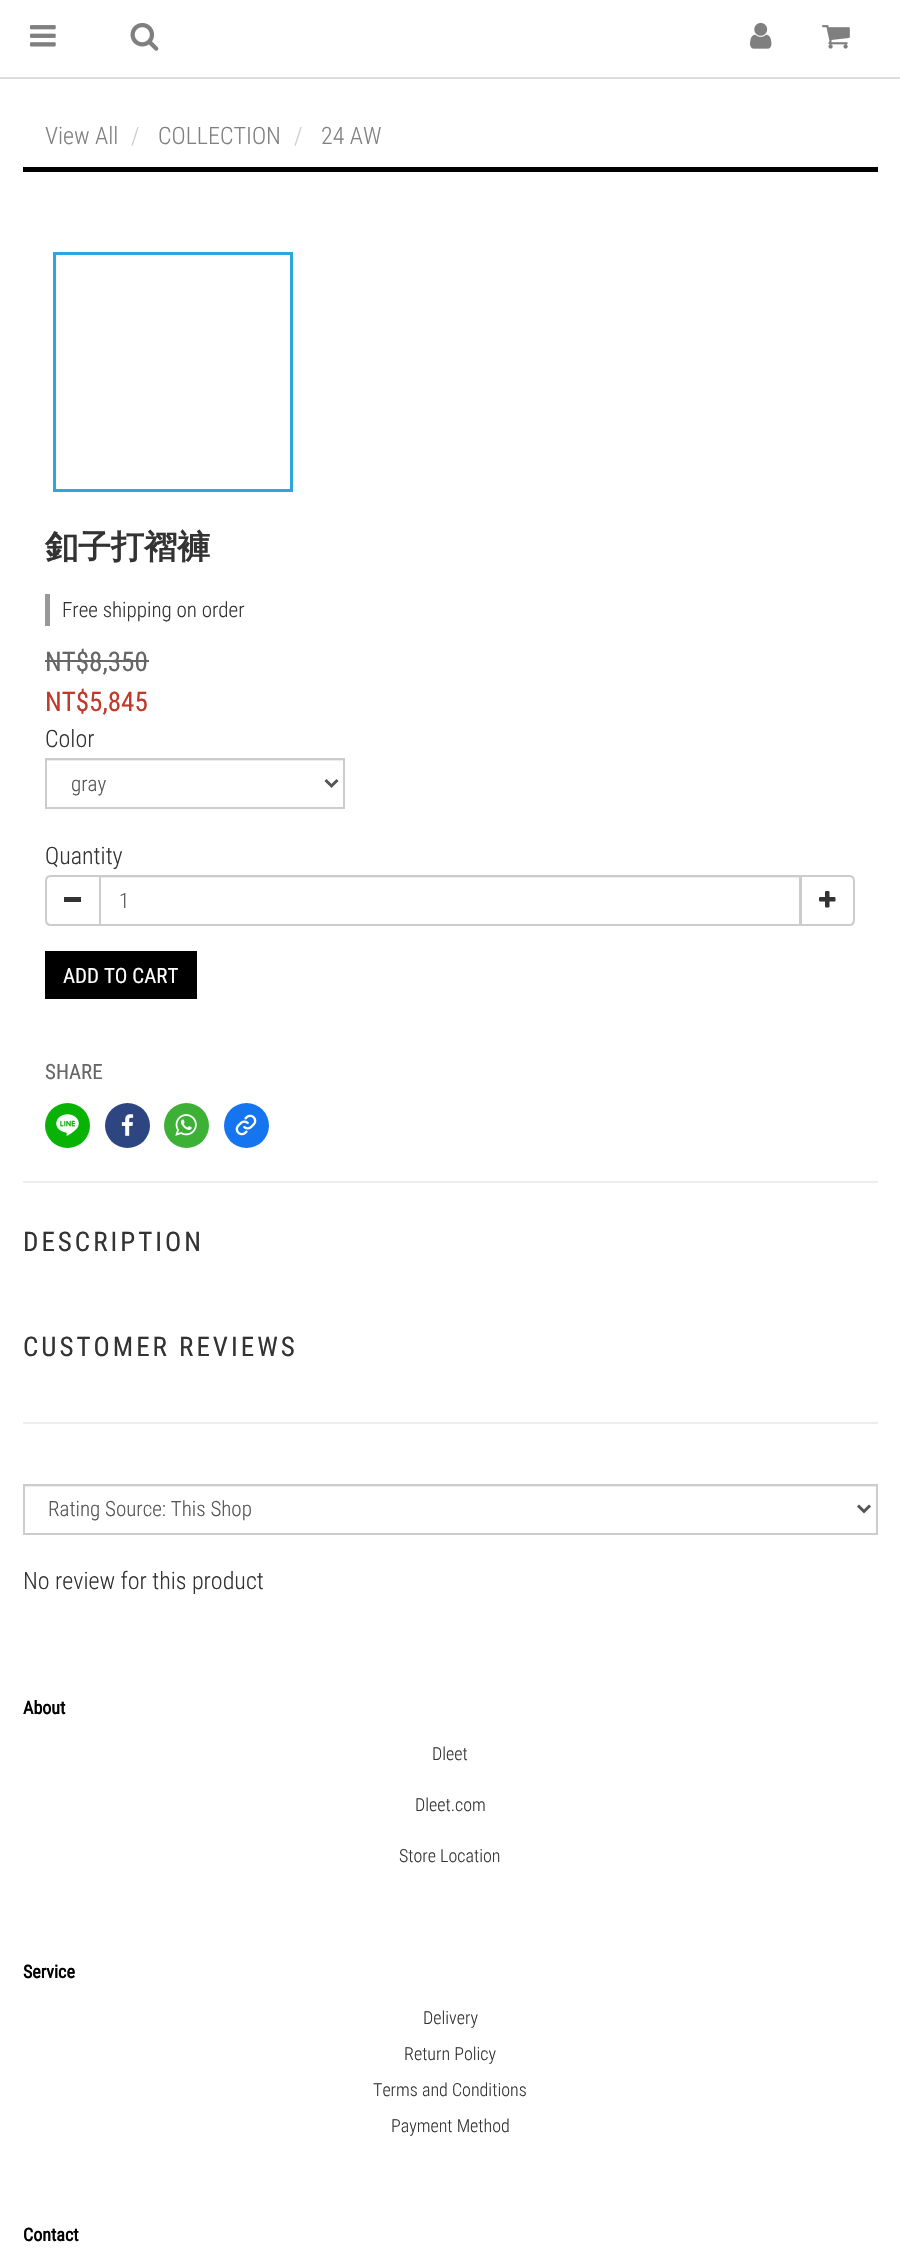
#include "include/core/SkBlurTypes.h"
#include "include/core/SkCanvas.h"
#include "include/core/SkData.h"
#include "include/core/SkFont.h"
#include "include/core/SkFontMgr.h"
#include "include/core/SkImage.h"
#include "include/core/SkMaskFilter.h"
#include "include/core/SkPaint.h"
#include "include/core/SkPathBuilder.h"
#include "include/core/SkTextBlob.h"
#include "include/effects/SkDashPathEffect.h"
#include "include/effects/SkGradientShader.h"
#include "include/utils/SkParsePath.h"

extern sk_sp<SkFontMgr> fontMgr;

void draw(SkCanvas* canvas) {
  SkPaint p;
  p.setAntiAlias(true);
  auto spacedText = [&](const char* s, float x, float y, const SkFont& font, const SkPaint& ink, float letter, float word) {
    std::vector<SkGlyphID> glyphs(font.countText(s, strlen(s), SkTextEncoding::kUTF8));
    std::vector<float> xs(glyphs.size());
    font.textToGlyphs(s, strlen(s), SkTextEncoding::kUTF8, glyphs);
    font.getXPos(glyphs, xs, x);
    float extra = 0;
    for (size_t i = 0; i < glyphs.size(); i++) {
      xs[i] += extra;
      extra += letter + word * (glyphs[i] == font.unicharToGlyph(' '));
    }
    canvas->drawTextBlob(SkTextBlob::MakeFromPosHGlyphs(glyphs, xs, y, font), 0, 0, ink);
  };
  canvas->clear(SK_ColorWHITE);
  p.setColor(SkColorSetRGB(221, 221, 221));
  canvas->drawRect(SkRect::MakeLTRB(0, 77, 900, 79), p);
  canvas->drawImageRect(SkImages::DeferredFromEncodedData(SkData::MakeFromFileName("images/1.png")), SkRect::MakeLTRB(30, 25, 56, 47), SkSamplingOptions());
  canvas->drawImageRect(SkImages::DeferredFromEncodedData(SkData::MakeFromFileName("images/2.png")), SkRect::MakeLTRB(130, 22, 159, 51), SkSamplingOptions());
  canvas->drawImageRect(SkImages::DeferredFromEncodedData(SkData::MakeFromFileName("images/3.png")), SkRect::MakeLTRB(750, 22, 772, 49), SkSamplingOptions());
  canvas->drawImageRect(SkImages::DeferredFromEncodedData(SkData::MakeFromFileName("images/4.png")), SkRect::MakeLTRB(822, 25, 850, 49), SkSamplingOptions());
  p.setColor(SK_ColorBLACK);
  canvas->drawRect(SkRect::MakeLTRB(23, 167, 878, 172), p);
  p.setStyle(SkPaint::kStroke_Style);
  p.setStrokeWidth(3);
  p.setColor(SkColorSetRGB(48, 164, 225));
  canvas->drawRect(SkRect::MakeLTRB(54.5f, 253.5f, 291.5f, 490.5f), p);
  p.setStyle(SkPaint::kFill_Style);
  p.setColor(SkColorSetRGB(153, 152, 153));
  canvas->drawRect(SkRect::MakeLTRB(45, 594, 50, 626), p);
  p.setColor(SkColorSetRGB(102, 102, 102));
  canvas->drawRect(SkRect::MakeLTRB(45, 660, 149, 662), p);
  p.setColor(SkColorSetRGB(236, 236, 236));
  canvas->drawRect(SkRect::MakeLTRB(47, 760, 344, 761), p);
  p.setStyle(SkPaint::kStroke_Style);
  p.setStrokeWidth(2);
  p.setColor(SkColorSetRGB(204, 204, 204));
  canvas->drawRect(SkRect::MakeLTRB(46, 759, 344, 808), p);
  p.setStrokeWidth(3);
  p.setColor(SkColorSetRGB(85, 85, 85));
  canvas->drawPath(SkPathBuilder().moveTo(325.5f, 780).lineTo(331.5f, 786).lineTo(337.5f, 780).detach(), p);
  p.setStrokeWidth(2);
  p.setColor(SkColorSetRGB(204, 204, 204));
  canvas->drawPath(SkPathBuilder().moveTo(51, 876).lineTo(100, 876).lineTo(100, 925).lineTo(51, 925).cubicTo(48, 925, 46, 923, 46, 920).lineTo(46, 881).cubicTo(46, 878, 48, 876, 51, 876).close().detach(), p);
  p.setStyle(SkPaint::kFill_Style);
  p.setColor(SkColorSetRGB(51, 51, 51));
  canvas->drawRect(SkRect::MakeLTRB(64, 897, 81, 902), p);
  p.setColor(SkColorSetRGB(236, 236, 236));
  canvas->drawRect(SkRect::MakeLTRB(101, 877, 800, 878), p);
  p.setStyle(SkPaint::kStroke_Style);
  p.setColor(SkColorSetRGB(204, 204, 204));
  canvas->drawRect(SkRect::MakeLTRB(100, 876, 800, 925), p);
  p.setStyle(SkPaint::kFill_Style);
  p.setColor(SK_ColorWHITE);
  canvas->drawPath(SkPathBuilder().moveTo(801, 876).lineTo(849, 876).cubicTo(852, 876, 854, 878, 854, 881).lineTo(854, 920).cubicTo(854, 923, 852, 925, 849, 925).lineTo(801, 925).close().detach(), p);
  p.setStyle(SkPaint::kStroke_Style);
  p.setColor(SkColorSetRGB(204, 204, 204));
  canvas->drawPath(SkPathBuilder().moveTo(801, 876).lineTo(849, 876).cubicTo(852, 876, 854, 878, 854, 881).lineTo(854, 920).cubicTo(854, 923, 852, 925, 849, 925).lineTo(801, 925).close().detach(), p);
  canvas->drawImageRect(SkImages::DeferredFromEncodedData(SkData::MakeFromFileName("images/5.png")), SkRect::MakeLTRB(819, 891, 836, 908), SkSamplingOptions());
  p.setStyle(SkPaint::kFill_Style);
  p.setColor(SK_ColorBLACK);
  canvas->drawRect(SkRect::MakeLTRB(45, 951, 197, 999), p);
  p.setColor(SkColorSetRGB(9, 179, 5));
  canvas->drawCircle(67.5f, 1125.5f, 22.5f, p);
  canvas->drawImageRect(SkImages::DeferredFromEncodedData(SkData::MakeFromFileName("images/6.png")), SkRect::MakeLTRB(56, 1114, 79, 1136), SkSamplingOptions());
  p.setColor(SkColorSetRGB(45, 70, 130));
  canvas->drawCircle(127.5f, 1125.5f, 22.5f, p);
  canvas->drawImageRect(SkImages::DeferredFromEncodedData(SkData::MakeFromFileName("images/7.png")), SkRect::MakeLTRB(121, 1114, 134, 1136), SkSamplingOptions());
  p.setColor(SkColorSetRGB(60, 177, 54));
  canvas->drawCircle(186.5f, 1125.5f, 22.5f, p);
  canvas->drawImageRect(SkImages::DeferredFromEncodedData(SkData::MakeFromFileName("images/8.png")), SkRect::MakeLTRB(175, 1114, 197, 1136), SkSamplingOptions());
  p.setColor(SkColorSetRGB(21, 117, 240));
  canvas->drawCircle(246.5f, 1125.5f, 22.5f, p);
  canvas->drawImageRect(SkImages::DeferredFromEncodedData(SkData::MakeFromFileName("images/9.png")), SkRect::MakeLTRB(235, 1114, 257, 1136), SkSamplingOptions());
  p.setColor(SkColorSetRGB(238, 238, 238));
  canvas->drawRect(SkRect::MakeLTRB(23, 1181, 878, 1183), p);
  canvas->drawRect(SkRect::MakeLTRB(23, 1422, 878, 1424), p);
  p.setColor(SkColorSetRGB(236, 236, 236));
  canvas->drawRect(SkRect::MakeLTRB(24, 1486, 876, 1487), p);
  p.setStyle(SkPaint::kStroke_Style);
  p.setColor(SkColorSetRGB(204, 204, 204));
  canvas->drawRect(SkRect::MakeLTRB(24, 1485, 877, 1534), p);
  p.setStrokeWidth(3);
  p.setColor(SkColorSetRGB(85, 85, 85));
  canvas->drawPath(SkPathBuilder().moveTo(858, 1505.5f).lineTo(864, 1511.5f).lineTo(870, 1505.5f).detach(), p);
  SkFont font1(fontMgr->matchFamilyStyle("Roboto Condensed", SkFontStyle(300, SkFontStyle::kNormal_Width, SkFontStyle::kUpright_Slant)), 24);
  font1.setSubpixel(true);
  p.setStyle(SkPaint::kFill_Style);
  p.setColor(SkColorSetRGB(128, 128, 128));
  canvas->drawString("View All", 45, 144, font1, p);
  p.setColor(SkColorSetRGB(204, 204, 204));
  canvas->drawString("/", 131, 144, font1, p);
  p.setColor(SkColorSetRGB(128, 128, 128));
  canvas->drawString("COLLECTION", 158, 144, font1, p);
  p.setColor(SkColorSetRGB(204, 204, 204));
  canvas->drawString("/", 294, 144, font1, p);
  p.setColor(SkColorSetRGB(128, 128, 128));
  canvas->drawString("24 AW", 321, 144, font1, p);
  SkFont font2(fontMgr->matchFamilyStyle("WenQuanYi Zen Hei", SkFontStyle::Bold()), 33);
  font2.setSubpixel(true);
  p.setColor(SkColorSetRGB(51, 51, 51));
  canvas->drawString("釦子打褶褲", 45, 558, font2, p);
  SkFont font3(fontMgr->matchFamilyStyle("Roboto Condensed", SkFontStyle(300, SkFontStyle::kNormal_Width, SkFontStyle::kUpright_Slant)), 21);
  font3.setSubpixel(true);
  canvas->drawString("Free shipping on order", 62, 617, font3, p);
  SkFont font4(fontMgr->matchFamilyStyle("Roboto Condensed", SkFontStyle::Normal()), 27);
  font4.setSubpixel(true);
  p.setColor(SkColorSetRGB(102, 102, 102));
  canvas->drawString("NT$8,350", 45, 671, font4, p);
  p.setColor(SkColorSetRGB(192, 57, 43));
  canvas->drawString("NT$5,845", 45, 711, font4, p);
  p.setColor(SkColorSetRGB(51, 51, 51));
  canvas->drawString("Color", 45, 747, font1, p);
  p.setColor(SkColorSetRGB(85, 85, 85));
  canvas->drawString("gray", 71, 791, font3, p);
  p.setColor(SkColorSetRGB(51, 51, 51));
  canvas->drawString("Quantity", 45, 864, font1, p);
  p.setColor(SkColorSetRGB(85, 85, 85));
  canvas->drawString("1", 119, 908, font3, p);
  SkFont font5(fontMgr->matchFamilyStyle("Roboto Condensed", SkFontStyle::Normal()), 21);
  font5.setSubpixel(true);
  p.setColor(SK_ColorWHITE);
  canvas->drawString("ADD TO CART", 63, 983, font5, p);
  p.setColor(SkColorSetRGB(102, 102, 102));
  canvas->drawString("SHARE", 45, 1079, font5, p);
  p.setColor(SkColorSetRGB(51, 51, 51));
  spacedText("DESCRIPTION", 23, 1251, font4, p, 3, 0);
  spacedText("CUSTOMER REVIEWS", 23, 1356, font4, p, 3, 0);
  p.setColor(SkColorSetRGB(85, 85, 85));
  canvas->drawString("Rating Source: This Shop", 48, 1516, font3, p);
  p.setColor(SkColorSetRGB(51, 51, 51));
  canvas->drawString("No review for this product", 23, 1589, font1, p);
  SkFont font6(fontMgr->matchFamilyStyle("Roboto Condensed", SkFontStyle::Bold()), 18);
  font6.setSubpixel(true);
  p.setColor(SK_ColorBLACK);
  canvas->drawString("About", 23, 1714, font6, p);
  SkFont font7(fontMgr->matchFamilyStyle("Roboto Condensed", SkFontStyle(300, SkFontStyle::kNormal_Width, SkFontStyle::kUpright_Slant)), 18);
  font7.setSubpixel(true);
  p.setColor(SkColorSetRGB(51, 51, 51));
  canvas->drawString("Dleet", 432, 1760, font7, p);
  canvas->drawString("Dleet.com", 415, 1811, font7, p);
  canvas->drawString("Store Location", 399, 1862, font7, p);
  p.setColor(SK_ColorBLACK);
  canvas->drawString("Service", 23, 1978, font6, p);
  p.setColor(SkColorSetRGB(51, 51, 51));
  canvas->drawString("Delivery", 423, 2024, font7, p);
  canvas->drawString("Return Policy", 404, 2060, font7, p);
  canvas->drawString("Terms and Conditions", 373, 2096, font7, p);
  canvas->drawString("Payment Method", 391, 2132, font7, p);
  p.setColor(SK_ColorBLACK);
  canvas->drawString("Contact", 23, 2241, font6, p);
}
